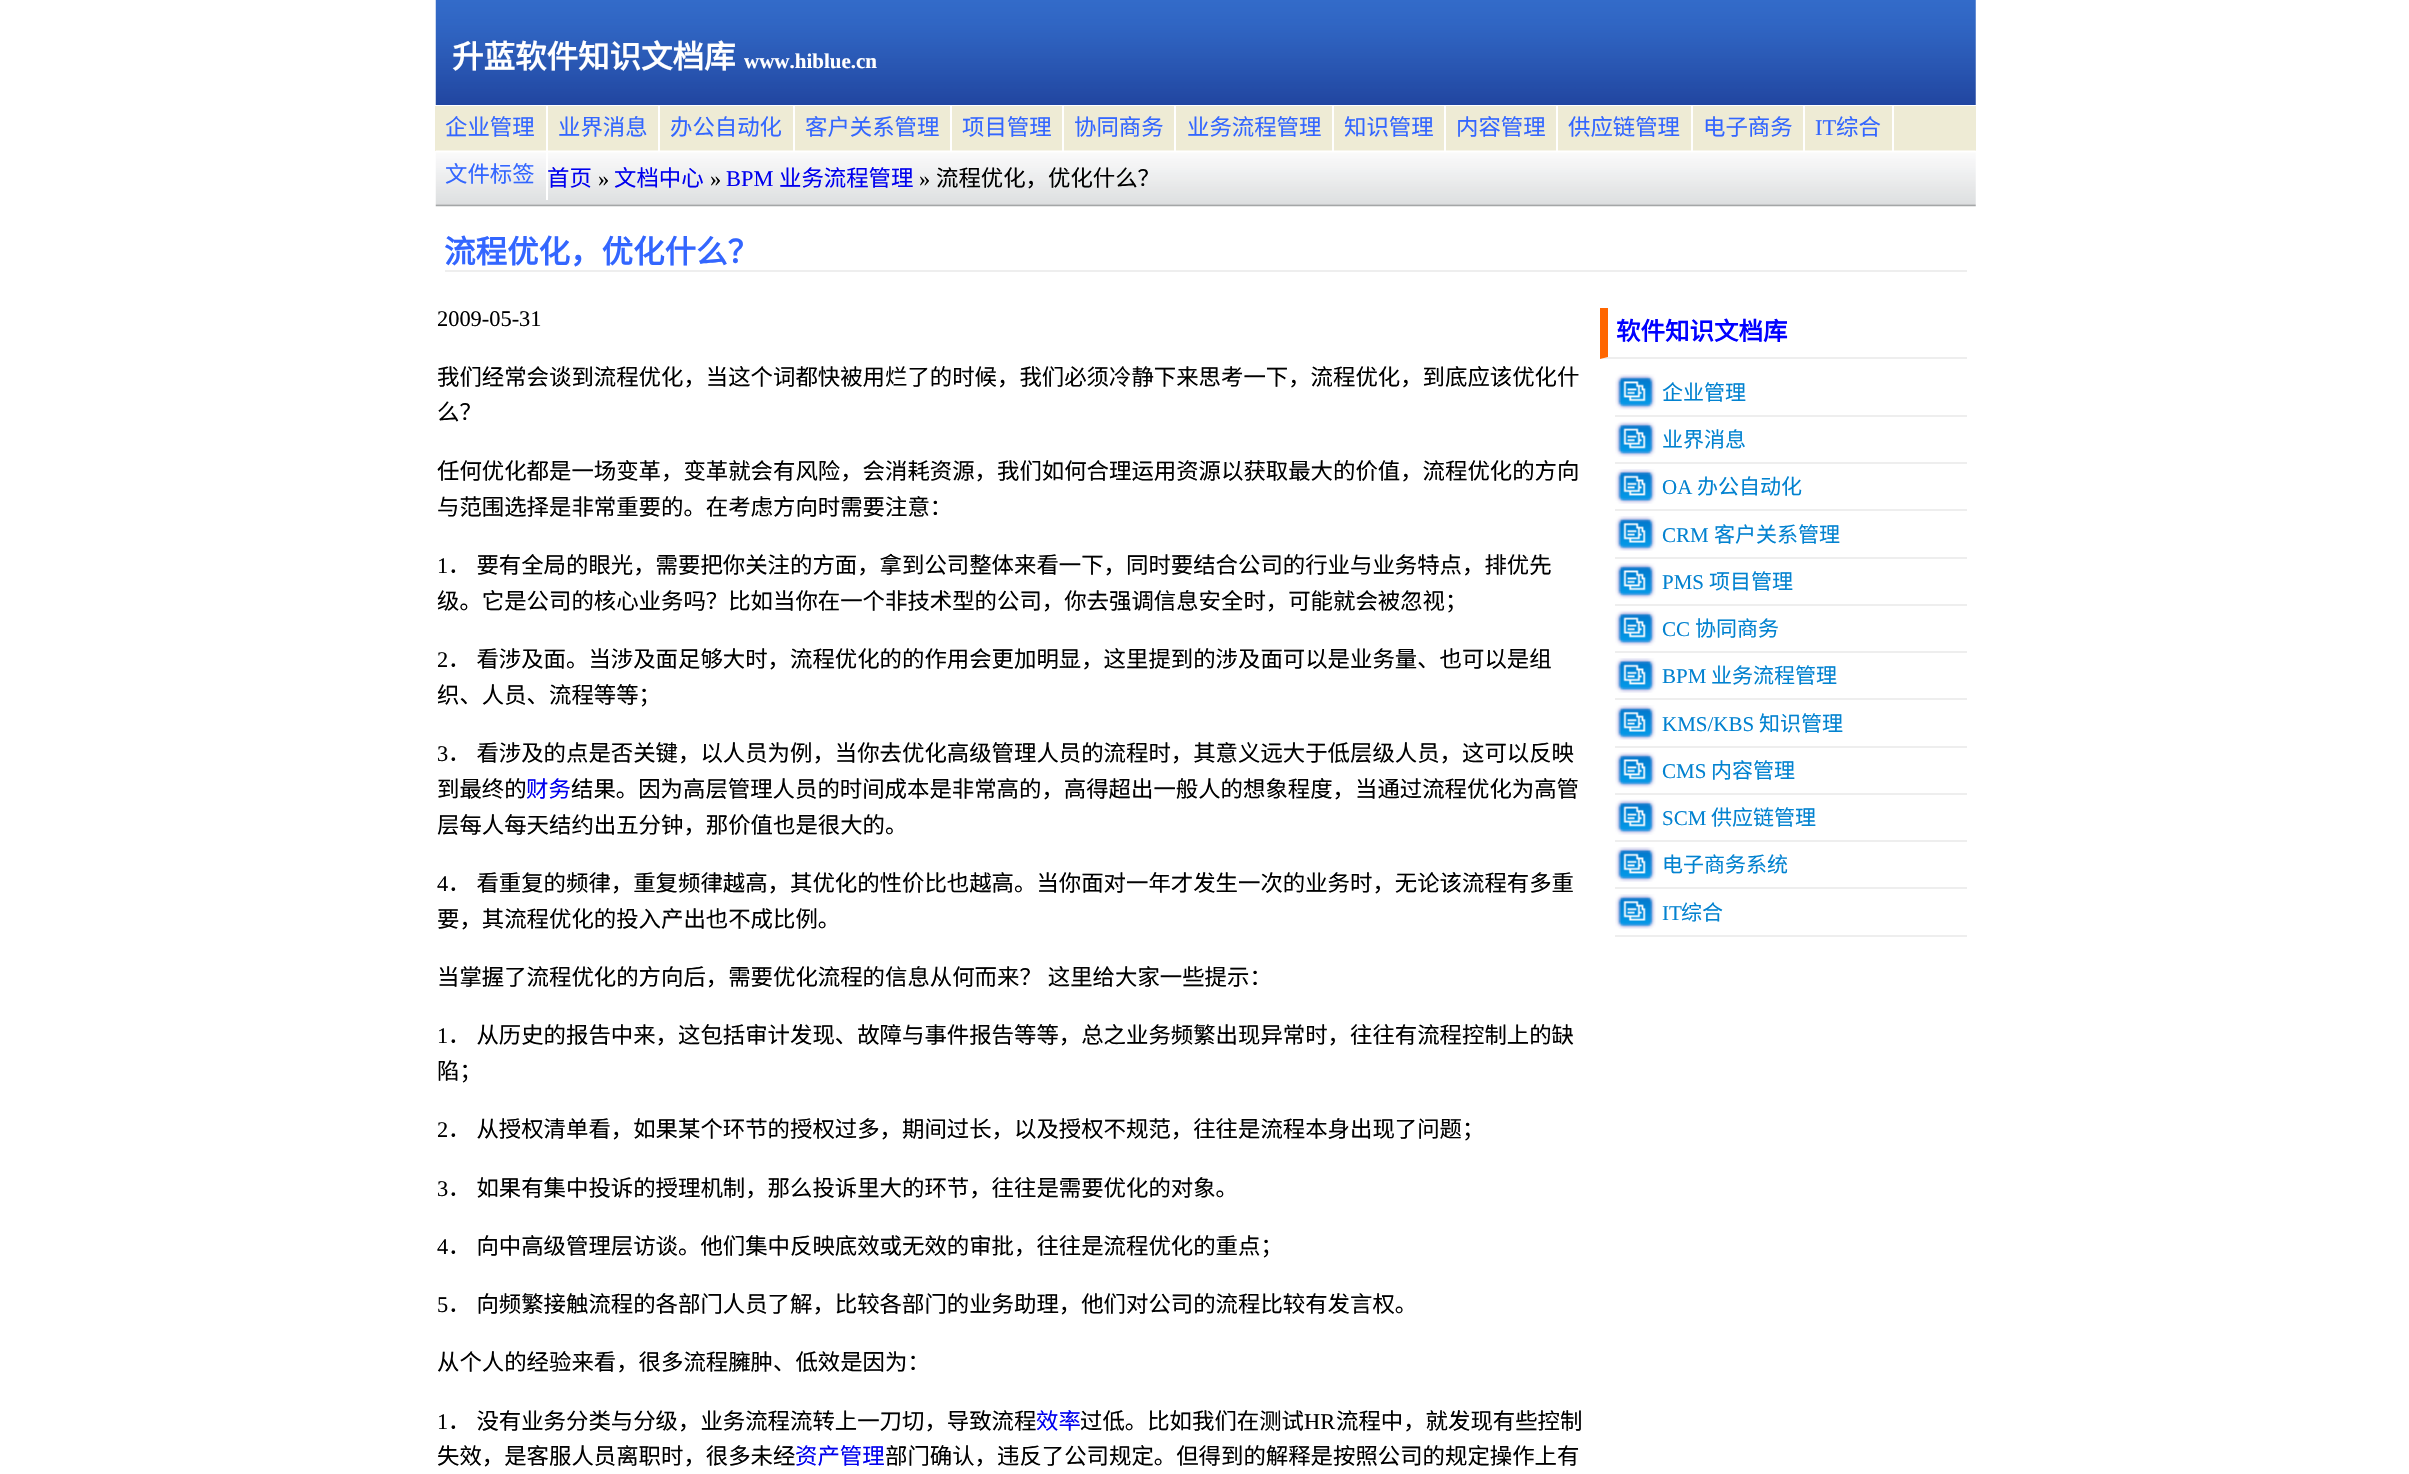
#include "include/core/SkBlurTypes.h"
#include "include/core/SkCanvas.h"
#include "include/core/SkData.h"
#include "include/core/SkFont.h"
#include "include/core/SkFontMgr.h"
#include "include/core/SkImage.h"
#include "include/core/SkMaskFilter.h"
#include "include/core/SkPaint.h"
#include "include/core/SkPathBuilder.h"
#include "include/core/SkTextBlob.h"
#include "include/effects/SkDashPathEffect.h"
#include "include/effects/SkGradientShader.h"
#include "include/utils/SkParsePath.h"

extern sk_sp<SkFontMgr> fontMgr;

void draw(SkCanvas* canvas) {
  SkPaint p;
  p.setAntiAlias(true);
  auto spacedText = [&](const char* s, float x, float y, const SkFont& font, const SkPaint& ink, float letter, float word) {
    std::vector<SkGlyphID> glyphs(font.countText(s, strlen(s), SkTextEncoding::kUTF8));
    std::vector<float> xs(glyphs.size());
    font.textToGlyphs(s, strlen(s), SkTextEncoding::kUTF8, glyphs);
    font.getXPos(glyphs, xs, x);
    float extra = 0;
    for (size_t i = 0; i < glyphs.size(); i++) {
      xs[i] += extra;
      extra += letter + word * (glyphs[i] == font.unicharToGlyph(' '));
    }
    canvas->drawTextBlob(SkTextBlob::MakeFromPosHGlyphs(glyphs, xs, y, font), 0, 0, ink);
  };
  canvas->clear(SK_ColorWHITE);
  canvas->drawImageRect(SkImages::DeferredFromEncodedData(SkData::MakeFromFileName("images/1.png")), SkRect::MakeLTRB(435, 0, 1976, 105), SkSamplingOptions());
  p.setColor(SkColorSetRGB(238, 235, 213));
  canvas->drawRect(SkRect::MakeLTRB(435, 106, 1976, 151), p);
  canvas->drawImageRect(SkImages::DeferredFromEncodedData(SkData::MakeFromFileName("images/2.png")), SkRect::MakeLTRB(435, 150, 1976, 207), SkSamplingOptions());
  p.setColor(SK_ColorWHITE);
  canvas->drawRect(SkRect::MakeLTRB(546, 105, 548, 200), p);
  canvas->drawRect(SkRect::MakeLTRB(658, 105, 660, 152), p);
  canvas->drawRect(SkRect::MakeLTRB(793, 105, 795, 152), p);
  canvas->drawRect(SkRect::MakeLTRB(950, 105, 952, 152), p);
  canvas->drawRect(SkRect::MakeLTRB(1062, 105, 1064, 152), p);
  canvas->drawRect(SkRect::MakeLTRB(1174, 105, 1176, 152), p);
  canvas->drawRect(SkRect::MakeLTRB(1332, 105, 1334, 152), p);
  canvas->drawRect(SkRect::MakeLTRB(1444, 105, 1446, 152), p);
  canvas->drawRect(SkRect::MakeLTRB(1556, 105, 1558, 152), p);
  canvas->drawRect(SkRect::MakeLTRB(1691, 105, 1693, 152), p);
  canvas->drawRect(SkRect::MakeLTRB(1803, 105, 1805, 152), p);
  canvas->drawRect(SkRect::MakeLTRB(1892, 105, 1894, 152), p);
  p.setColor(SkColorSetRGB(238, 238, 238));
  canvas->drawRect(SkRect::MakeLTRB(445, 270, 1967, 272), p);
  canvas->drawPath(SkPathBuilder().moveTo(1967, 359).lineTo(1600, 359).lineTo(1608, 357).lineTo(1967, 357).close().detach(), p);
  p.setColor(SkColorSetRGB(255, 102, 0));
  canvas->drawPath(SkPathBuilder().moveTo(1600, 359).lineTo(1600, 308).lineTo(1608, 308).lineTo(1608, 357).close().detach(), p);
  canvas->drawImageRect(SkImages::DeferredFromEncodedData(SkData::MakeFromFileName("images/3.png")), SkRect::MakeLTRB(1615, 374, 1656, 410), SkSamplingOptions());
  p.setColor(SkColorSetRGB(238, 238, 238));
  canvas->drawRect(SkRect::MakeLTRB(1615, 415, 1967, 417), p);
  canvas->drawImageRect(SkImages::DeferredFromEncodedData(SkData::MakeFromFileName("images/4.png")), SkRect::MakeLTRB(1615, 421, 1656, 457), SkSamplingOptions());
  canvas->drawRect(SkRect::MakeLTRB(1615, 462, 1967, 464), p);
  canvas->drawImageRect(SkImages::DeferredFromEncodedData(SkData::MakeFromFileName("images/5.png")), SkRect::MakeLTRB(1615, 469, 1656, 504), SkSamplingOptions());
  canvas->drawRect(SkRect::MakeLTRB(1615, 509, 1967, 511), p);
  canvas->drawImageRect(SkImages::DeferredFromEncodedData(SkData::MakeFromFileName("images/6.png")), SkRect::MakeLTRB(1615, 516, 1656, 551), SkSamplingOptions());
  canvas->drawRect(SkRect::MakeLTRB(1615, 557, 1967, 559), p);
  canvas->drawImageRect(SkImages::DeferredFromEncodedData(SkData::MakeFromFileName("images/3.png")), SkRect::MakeLTRB(1615, 563, 1656, 599), SkSamplingOptions());
  canvas->drawRect(SkRect::MakeLTRB(1615, 604, 1967, 606), p);
  canvas->drawImageRect(SkImages::DeferredFromEncodedData(SkData::MakeFromFileName("images/4.png")), SkRect::MakeLTRB(1615, 610, 1656, 646), SkSamplingOptions());
  canvas->drawRect(SkRect::MakeLTRB(1615, 651, 1967, 653), p);
  canvas->drawImageRect(SkImages::DeferredFromEncodedData(SkData::MakeFromFileName("images/5.png")), SkRect::MakeLTRB(1615, 658, 1656, 693), SkSamplingOptions());
  canvas->drawRect(SkRect::MakeLTRB(1615, 698, 1967, 700), p);
  canvas->drawImageRect(SkImages::DeferredFromEncodedData(SkData::MakeFromFileName("images/6.png")), SkRect::MakeLTRB(1615, 705, 1656, 740), SkSamplingOptions());
  canvas->drawRect(SkRect::MakeLTRB(1615, 746, 1967, 748), p);
  canvas->drawImageRect(SkImages::DeferredFromEncodedData(SkData::MakeFromFileName("images/3.png")), SkRect::MakeLTRB(1615, 752, 1656, 788), SkSamplingOptions());
  canvas->drawRect(SkRect::MakeLTRB(1615, 793, 1967, 795), p);
  canvas->drawImageRect(SkImages::DeferredFromEncodedData(SkData::MakeFromFileName("images/4.png")), SkRect::MakeLTRB(1615, 799, 1656, 835), SkSamplingOptions());
  canvas->drawRect(SkRect::MakeLTRB(1615, 840, 1967, 842), p);
  canvas->drawImageRect(SkImages::DeferredFromEncodedData(SkData::MakeFromFileName("images/5.png")), SkRect::MakeLTRB(1615, 847, 1656, 882), SkSamplingOptions());
  canvas->drawRect(SkRect::MakeLTRB(1615, 887, 1967, 889), p);
  canvas->drawImageRect(SkImages::DeferredFromEncodedData(SkData::MakeFromFileName("images/6.png")), SkRect::MakeLTRB(1615, 894, 1656, 929), SkSamplingOptions());
  canvas->drawRect(SkRect::MakeLTRB(1615, 935, 1967, 937), p);
  SkFont font1(fontMgr->matchFamilyStyle("Noto Sans CJK SC", SkFontStyle::Bold()), 31.5f);
  font1.setSubpixel(true);
  p.setColor(SK_ColorWHITE);
  canvas->drawString("升蓝软件知识文档库", 452, 68, font1, p);
  SkFont font2(fontMgr->matchFamilyStyle("Liberation Serif", SkFontStyle::Bold()), 21);
  font2.setSubpixel(true);
  canvas->drawString("www.hiblue.cn", 744, 68, font2, p);
  SkFont font3(fontMgr->matchFamilyStyle("Noto Sans CJK SC", SkFontStyle::Normal()), 22.4f);
  font3.setSubpixel(true);
  p.setColor(SkColorSetRGB(51, 102, 255));
  canvas->drawString("企业管理", 445, 135, font3, p);
  canvas->drawString("业界消息", 558, 135, font3, p);
  canvas->drawString("办公自动化", 670, 135, font3, p);
  canvas->drawString("客户关系管理", 805, 135, font3, p);
  canvas->drawString("项目管理", 962, 135, font3, p);
  canvas->drawString("协同商务", 1074, 135, font3, p);
  canvas->drawString("业务流程管理", 1187, 135, font3, p);
  canvas->drawString("知识管理", 1344, 135, font3, p);
  canvas->drawString("内容管理", 1456, 135, font3, p);
  canvas->drawString("供应链管理", 1568, 135, font3, p);
  canvas->drawString("电子商务", 1703, 135, font3, p);
  SkFont font4(fontMgr->matchFamilyStyle("Liberation Serif", SkFontStyle::Normal()), 22.4f);
  font4.setSubpixel(true);
  canvas->drawString("IT", 1815, 135, font4, p);
  canvas->drawString("综合", 1836, 135, font3, p);
  canvas->drawString("文件标签", 445, 182, font3, p);
  p.setColor(SkColorSetRGB(0, 0, 238));
  canvas->drawString("首页", 547, 186, font3, p);
  p.setColor(SK_ColorBLACK);
  canvas->drawString("»", 598, 186, font4, p);
  p.setColor(SkColorSetRGB(0, 0, 238));
  canvas->drawString("文档中心", 614, 186, font3, p);
  p.setColor(SK_ColorBLACK);
  canvas->drawString("»", 710, 186, font4, p);
  p.setColor(SkColorSetRGB(0, 0, 238));
  canvas->drawString("BPM", 726, 186, font4, p);
  canvas->drawString("业务流程管理", 779, 186, font3, p);
  p.setColor(SK_ColorBLACK);
  canvas->drawString("»", 919, 186, font4, p);
  canvas->drawString("流程优化，优化什么？", 936, 186, font3, p);
  p.setColor(SkColorSetRGB(51, 102, 255));
  canvas->drawString("流程优化，优化什么？", 444, 263, font1, p);
  p.setColor(SK_ColorBLACK);
  canvas->drawString("2009-05-31", 437, 326, font4, p);
  canvas->drawString("我们经常会谈到流程优化，当这个词都快被用烂了的时候，我们必须冷静下来思考一下，流程优化，到底应该优化什", 437, 385, font3, p);
  canvas->drawString("么？", 437, 420, font3, p);
  canvas->drawString("任何优化都是一场变革，变革就会有风险，会消耗资源，我们如何合理运用资源以获取最大的价值，流程优化的方向", 437, 479, font3, p);
  canvas->drawString("与范围选择是非常重要的。在考虑方向时需要注意：", 437, 515, font3, p);
  canvas->drawString("1", 437, 573, font4, p);
  spacedText("． 要有全局的眼光，需要把你关注的方面，拿到公司整体来看一下，同时要结合公司的行业与业务特点，排优先", 448, 573, font3, p, 0, 1);
  canvas->drawString("级。它是公司的核心业务吗？比如当你在一个非技术型的公司，你去强调信息安全时，可能就会被忽视；", 437, 609, font3, p);
  canvas->drawString("2", 437, 667, font4, p);
  spacedText("． 看涉及面。当涉及面足够大时，流程优化的的作用会更加明显，这里提到的涉及面可以是业务量、也可以是组", 448, 667, font3, p, 0, 1);
  canvas->drawString("织、人员、流程等等；", 437, 703, font3, p);
  canvas->drawString("3", 437, 761, font4, p);
  spacedText("． 看涉及的点是否关键，以人员为例，当你去优化高级管理人员的流程时，其意义远大于低层级人员，这可以反映", 448, 761, font3, p, 0, 1);
  canvas->drawString("到最终的", 437, 797, font3, p);
  p.setColor(SkColorSetRGB(0, 0, 238));
  canvas->drawString("财务", 526, 797, font3, p);
  p.setColor(SK_ColorBLACK);
  canvas->drawString("结果。因为高层管理人员的时间成本是非常高的，高得超出一般人的想象程度，当通过流程优化为高管", 571, 797, font3, p);
  canvas->drawString("层每人每天结约出五分钟，那价值也是很大的。", 437, 833, font3, p);
  canvas->drawString("4", 437, 891, font4, p);
  spacedText("． 看重复的频律，重复频律越高，其优化的性价比也越高。当你面对一年才发生一次的业务时，无论该流程有多重", 448, 891, font3, p, 0, 1);
  canvas->drawString("要，其流程优化的投入产出也不成比例。", 437, 927, font3, p);
  spacedText("当掌握了流程优化的方向后，需要优化流程的信息从何而来？ 这里给大家一些提示：", 437, 985, font3, p, 0, 1);
  canvas->drawString("1", 437, 1043, font4, p);
  spacedText("． 从历史的报告中来，这包括审计发现、故障与事件报告等等，总之业务频繁出现异常时，往往有流程控制上的缺", 448, 1043, font3, p, 0, 1);
  canvas->drawString("陷；", 437, 1079, font3, p);
  canvas->drawString("2", 437, 1137, font4, p);
  spacedText("． 从授权清单看，如果某个环节的授权过多，期间过长，以及授权不规范，往往是流程本身出现了问题；", 448, 1137, font3, p, 0, 1);
  canvas->drawString("3", 437, 1196, font4, p);
  spacedText("． 如果有集中投诉的授理机制，那么投诉里大的环节，往往是需要优化的对象。", 448, 1196, font3, p, 0, 1);
  canvas->drawString("4", 437, 1254, font4, p);
  spacedText("． 向中高级管理层访谈。他们集中反映底效或无效的审批，往往是流程优化的重点；", 448, 1254, font3, p, 0, 1);
  canvas->drawString("5", 437, 1312, font4, p);
  spacedText("． 向频繁接触流程的各部门人员了解，比较各部门的业务助理，他们对公司的流程比较有发言权。", 448, 1312, font3, p, 0, 1);
  canvas->drawString("从个人的经验来看，很多流程臃肿、低效是因为：", 437, 1370, font3, p);
  canvas->drawString("1", 437, 1429, font4, p);
  spacedText("． 没有业务分类与分级，业务流程流转上一刀切，导致流程", 448, 1429, font3, p, 0, 1);
  p.setColor(SkColorSetRGB(0, 0, 238));
  canvas->drawString("效率", 1036, 1429, font3, p);
  p.setColor(SK_ColorBLACK);
  canvas->drawString("过低。比如我们在测试", 1080, 1429, font3, p);
  canvas->drawString("HR", 1304, 1429, font4, p);
  canvas->drawString("流程中，就发现有些控制", 1336, 1429, font3, p);
  canvas->drawString("失效，是客服人员离职时，很多未经", 437, 1464, font3, p);
  p.setColor(SkColorSetRGB(0, 0, 238));
  canvas->drawString("资产管理", 795, 1464, font3, p);
  p.setColor(SK_ColorBLACK);
  canvas->drawString("部门确认，违反了公司规定。但得到的解释是按照公司的规定操作上有", 885, 1464, font3, p);
  SkFont font5(fontMgr->matchFamilyStyle("Noto Sans CJK SC", SkFontStyle::Bold()), 24.5f);
  font5.setSubpixel(true);
  p.setColor(SkColorSetRGB(0, 0, 255));
  canvas->drawString("软件知识文档库", 1616, 340, font5, p);
  SkFont font6(fontMgr->matchFamilyStyle("Noto Sans CJK SC", SkFontStyle::Normal()), 21);
  font6.setSubpixel(true);
  p.setColor(SkColorSetRGB(2, 130, 208));
  canvas->drawString("企业管理", 1662, 400, font6, p);
  canvas->drawString("业界消息", 1662, 447, font6, p);
  SkFont font7(fontMgr->matchFamilyStyle("Liberation Serif", SkFontStyle::Normal()), 21);
  font7.setSubpixel(true);
  canvas->drawString("OA", 1662, 494, font7, p);
  canvas->drawString("办公自动化", 1697, 494, font6, p);
  canvas->drawString("CRM", 1662, 542, font7, p);
  canvas->drawString("客户关系管理", 1714, 542, font6, p);
  canvas->drawString("PMS", 1662, 589, font7, p);
  canvas->drawString("项目管理", 1709, 589, font6, p);
  canvas->drawString("CC", 1662, 636, font7, p);
  canvas->drawString("协同商务", 1695, 636, font6, p);
  canvas->drawString("BPM", 1662, 683, font7, p);
  canvas->drawString("业务流程管理", 1711, 683, font6, p);
  canvas->drawString("KMS/KBS", 1662, 731, font7, p);
  canvas->drawString("知识管理", 1759, 731, font6, p);
  canvas->drawString("CMS", 1662, 778, font7, p);
  canvas->drawString("内容管理", 1711, 778, font6, p);
  canvas->drawString("SCM", 1662, 825, font7, p);
  canvas->drawString("供应链管理", 1711, 825, font6, p);
  canvas->drawString("电子商务系统", 1662, 872, font6, p);
  canvas->drawString("IT", 1662, 920, font7, p);
  canvas->drawString("综合", 1681, 920, font6, p);
}
